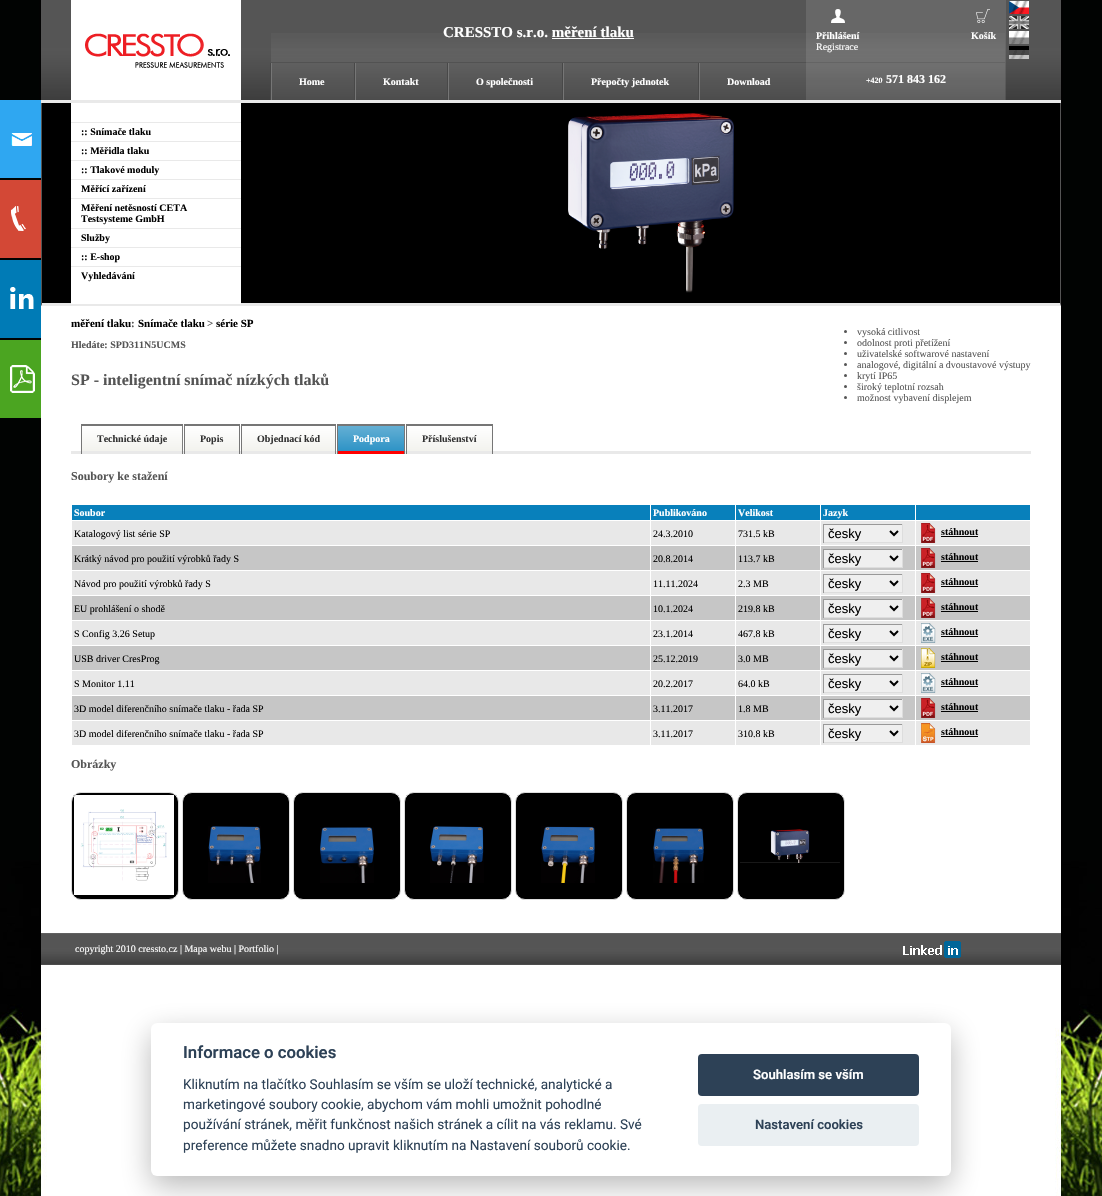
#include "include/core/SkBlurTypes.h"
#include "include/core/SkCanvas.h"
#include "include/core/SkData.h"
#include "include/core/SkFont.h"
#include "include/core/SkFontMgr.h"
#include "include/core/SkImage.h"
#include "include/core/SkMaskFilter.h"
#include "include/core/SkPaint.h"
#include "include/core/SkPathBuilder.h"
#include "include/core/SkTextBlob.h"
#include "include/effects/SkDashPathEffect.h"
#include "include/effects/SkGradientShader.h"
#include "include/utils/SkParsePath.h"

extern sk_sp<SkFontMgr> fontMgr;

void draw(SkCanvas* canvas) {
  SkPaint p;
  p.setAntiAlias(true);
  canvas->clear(SK_ColorWHITE);
  canvas->drawImageRect(SkImages::DeferredFromEncodedData(SkData::MakeFromFileName("images/1.png")), SkRect::MakeLTRB(0, 0, 1102, 1196), SkSamplingOptions());
  p.setColor(SkColorSetRGB(47, 167, 241));
  canvas->drawRect(SkRect::MakeLTRB(0, 100, 41, 178), p);
  canvas->drawImageRect(SkImages::DeferredFromEncodedData(SkData::MakeFromFileName("images/2.png")), SkRect::MakeLTRB(11, 133, 32, 146), SkSamplingOptions());
  p.setColor(SkColorSetRGB(211, 72, 54));
  canvas->drawRect(SkRect::MakeLTRB(0, 180, 41, 258), p);
  canvas->drawImageRect(SkImages::DeferredFromEncodedData(SkData::MakeFromFileName("images/3.png")), SkRect::MakeLTRB(11, 206, 26, 231), SkSamplingOptions());
  p.setColor(SkColorSetRGB(0, 123, 182));
  canvas->drawRect(SkRect::MakeLTRB(0, 260, 41, 338), p);
  canvas->drawImageRect(SkImages::DeferredFromEncodedData(SkData::MakeFromFileName("images/4.png")), SkRect::MakeLTRB(10, 287, 34, 309), SkSamplingOptions());
  p.setColor(SkColorSetRGB(75, 165, 33));
  canvas->drawRect(SkRect::MakeLTRB(0, 340, 41, 418), p);
  canvas->drawImageRect(SkImages::DeferredFromEncodedData(SkData::MakeFromFileName("images/5.png")), SkRect::MakeLTRB(10, 365, 35, 393), SkSamplingOptions());
  canvas->drawImageRect(SkImages::DeferredFromEncodedData(SkData::MakeFromFileName("images/6.png")), SkRect::MakeLTRB(41, 0, 1061, 100), SkSamplingOptions());
  p.setColor(SkColorSetRGB(233, 233, 233));
  canvas->drawRect(SkRect::MakeLTRB(41, 100, 1061, 103), p);
  canvas->drawImageRect(SkImages::DeferredFromEncodedData(SkData::MakeFromFileName("images/7.png")), SkRect::MakeLTRB(71, 0, 241, 100), SkSamplingOptions());
  canvas->drawImageRect(SkImages::DeferredFromEncodedData(SkData::MakeFromFileName("images/14.png")), SkRect::MakeLTRB(271, 33, 1005, 100), SkSamplingOptions());
  p.setColor(SK_ColorWHITE);
  canvas->drawRect(SkRect::MakeLTRB(552, 38, 634, 39), p);
  p.setColor(SkColorSetARGB(26, 255, 255, 255));
  canvas->drawRect(SkRect::MakeLTRB(806, 0, 1006, 100), p);
  canvas->drawImageRect(SkImages::DeferredFromEncodedData(SkData::MakeFromFileName("images/8.png")), SkRect::MakeLTRB(831, 9, 845, 23), SkSamplingOptions());
  canvas->drawImageRect(SkImages::DeferredFromEncodedData(SkData::MakeFromFileName("images/9.png")), SkRect::MakeLTRB(976, 9, 990, 23), SkSamplingOptions());
  canvas->drawImageRect(SkImages::DeferredFromEncodedData(SkData::MakeFromFileName("images/10.png")), SkRect::MakeLTRB(1009, 1, 1029, 14), SkSamplingOptions());
  canvas->drawImageRect(SkImages::DeferredFromEncodedData(SkData::MakeFromFileName("images/11.png")), SkRect::MakeLTRB(1009, 16, 1029, 29), SkSamplingOptions());
  canvas->drawImageRect(SkImages::DeferredFromEncodedData(SkData::MakeFromFileName("images/12.png")), SkRect::MakeLTRB(1009, 31, 1029, 44), SkSamplingOptions());
  canvas->drawImageRect(SkImages::DeferredFromEncodedData(SkData::MakeFromFileName("images/13.png")), SkRect::MakeLTRB(1009, 46, 1029, 59), SkSamplingOptions());
  canvas->drawImageRect(SkImages::DeferredFromEncodedData(SkData::MakeFromFileName("images/15.png")), SkRect::MakeLTRB(270, 63, 272, 100), SkSamplingOptions());
  canvas->drawImageRect(SkImages::DeferredFromEncodedData(SkData::MakeFromFileName("images/15.png")), SkRect::MakeLTRB(354, 63, 356, 100), SkSamplingOptions());
  canvas->drawImageRect(SkImages::DeferredFromEncodedData(SkData::MakeFromFileName("images/15.png")), SkRect::MakeLTRB(447, 63, 449, 100), SkSamplingOptions());
  canvas->drawImageRect(SkImages::DeferredFromEncodedData(SkData::MakeFromFileName("images/15.png")), SkRect::MakeLTRB(562, 63, 564, 100), SkSamplingOptions());
  canvas->drawImageRect(SkImages::DeferredFromEncodedData(SkData::MakeFromFileName("images/15.png")), SkRect::MakeLTRB(698, 63, 700, 100), SkSamplingOptions());
  p.setColor(SK_ColorBLACK);
  canvas->drawRect(SkRect::MakeLTRB(41, 103, 1061, 306), p);
  p.setColor(SkColorSetRGB(85, 85, 85));
  canvas->drawPath(SkPathBuilder().moveTo(1061, 103).lineTo(1061, 306).lineTo(1060, 303).lineTo(1060, 103).close().detach(), p);
  p.setColor(SkColorSetRGB(233, 233, 233));
  canvas->drawPath(SkPathBuilder().moveTo(1061, 306).lineTo(41, 306).lineTo(42, 303).lineTo(1060, 303).close().detach(), p);
  p.setColor(SkColorSetRGB(85, 85, 85));
  canvas->drawPath(SkPathBuilder().moveTo(41, 306).lineTo(41, 103).lineTo(42, 103).lineTo(42, 303).close().detach(), p);
  canvas->drawImageRect(SkImages::DeferredFromEncodedData(SkData::MakeFromFileName("images/16.png")), SkRect::MakeLTRB(568, 113, 734, 293), SkSamplingOptions());
  p.setColor(SK_ColorWHITE);
  canvas->drawRect(SkRect::MakeLTRB(71, 103, 241, 304), p);
  p.setColor(SkColorSetRGB(233, 233, 233));
  canvas->drawRect(SkRect::MakeLTRB(71, 122, 241, 123), p);
  canvas->drawRect(SkRect::MakeLTRB(71, 141, 241, 142), p);
  canvas->drawRect(SkRect::MakeLTRB(71, 160, 241, 161), p);
  canvas->drawRect(SkRect::MakeLTRB(71, 179, 241, 180), p);
  canvas->drawRect(SkRect::MakeLTRB(71, 198, 241, 199), p);
  canvas->drawRect(SkRect::MakeLTRB(71, 228, 241, 229), p);
  canvas->drawRect(SkRect::MakeLTRB(71, 247, 241, 248), p);
  canvas->drawRect(SkRect::MakeLTRB(71, 266, 241, 267), p);
  p.setColor(SkColorSetRGB(85, 85, 85));
  canvas->drawCircle(845.5f, 331.5f, 1.5f, p);
  canvas->drawCircle(845.5f, 342.5f, 1.5f, p);
  canvas->drawCircle(845.5f, 353.5f, 1.5f, p);
  canvas->drawCircle(845.5f, 364.5f, 1.5f, p);
  canvas->drawCircle(845.5f, 375.5f, 1.5f, p);
  canvas->drawCircle(845.5f, 386.5f, 1.5f, p);
  canvas->drawCircle(845.5f, 397.5f, 1.5f, p);
  p.setColor(SkColorSetRGB(233, 233, 233));
  canvas->drawRect(SkRect::MakeLTRB(71, 451, 1031, 454), p);
  canvas->drawImageRect(SkImages::DeferredFromEncodedData(SkData::MakeFromFileName("images/17.png")), SkRect::MakeLTRB(81, 424, 85, 454), SkSamplingOptions());
  canvas->drawImageRect(SkImages::DeferredFromEncodedData(SkData::MakeFromFileName("images/18.png")), SkRect::MakeLTRB(85, 424, 183, 454), SkSamplingOptions());
  canvas->drawImageRect(SkImages::DeferredFromEncodedData(SkData::MakeFromFileName("images/17.png")), SkRect::MakeLTRB(184, 424, 188, 454), SkSamplingOptions());
  canvas->drawImageRect(SkImages::DeferredFromEncodedData(SkData::MakeFromFileName("images/19.png")), SkRect::MakeLTRB(188, 424, 240, 454), SkSamplingOptions());
  canvas->drawImageRect(SkImages::DeferredFromEncodedData(SkData::MakeFromFileName("images/17.png")), SkRect::MakeLTRB(241, 424, 245, 454), SkSamplingOptions());
  canvas->drawImageRect(SkImages::DeferredFromEncodedData(SkData::MakeFromFileName("images/20.png")), SkRect::MakeLTRB(245, 424, 336, 454), SkSamplingOptions());
  canvas->drawImageRect(SkImages::DeferredFromEncodedData(SkData::MakeFromFileName("images/21.png")), SkRect::MakeLTRB(337, 424, 341, 454), SkSamplingOptions());
  canvas->drawImageRect(SkImages::DeferredFromEncodedData(SkData::MakeFromFileName("images/22.png")), SkRect::MakeLTRB(341, 424, 405, 454), SkSamplingOptions());
  canvas->drawImageRect(SkImages::DeferredFromEncodedData(SkData::MakeFromFileName("images/17.png")), SkRect::MakeLTRB(406, 424, 410, 454), SkSamplingOptions());
  canvas->drawImageRect(SkImages::DeferredFromEncodedData(SkData::MakeFromFileName("images/23.png")), SkRect::MakeLTRB(410, 424, 493, 454), SkSamplingOptions());
  p.setColor(SkColorSetRGB(8, 128, 187));
  canvas->drawRect(SkRect::MakeLTRB(72, 505, 650, 520), p);
  canvas->drawRect(SkRect::MakeLTRB(651, 505, 735, 520), p);
  canvas->drawRect(SkRect::MakeLTRB(736, 505, 820, 520), p);
  canvas->drawRect(SkRect::MakeLTRB(821, 505, 915, 520), p);
  canvas->drawRect(SkRect::MakeLTRB(916, 505, 1030, 520), p);
  p.setColor(SkColorSetRGB(232, 232, 232));
  canvas->drawRect(SkRect::MakeLTRB(72, 521, 650, 545), p);
  canvas->drawRect(SkRect::MakeLTRB(651, 521, 735, 545), p);
  canvas->drawRect(SkRect::MakeLTRB(736, 521, 820, 545), p);
  canvas->drawRect(SkRect::MakeLTRB(821, 521, 915, 545), p);
  p.setColor(SkColorSetRGB(239, 239, 239));
  canvas->drawRect(SkRect::MakeLTRB(824, 525, 902, 542), p);
  p.setColor(SkColorSetRGB(153, 153, 153));
  canvas->drawRect(SkRect::MakeLTRB(823, 524, 903, 525), p);
  p.setColor(SkColorSetRGB(221, 221, 221));
  canvas->drawRect(SkRect::MakeLTRB(902, 524, 903, 543), p);
  canvas->drawRect(SkRect::MakeLTRB(823, 542, 903, 543), p);
  p.setColor(SkColorSetRGB(153, 153, 153));
  canvas->drawRect(SkRect::MakeLTRB(823, 524, 824, 543), p);
  p.setStyle(SkPaint::kStroke_Style);
  p.setStrokeWidth(2);
  p.setColor(SK_ColorBLACK);
  canvas->drawPath(SkPathBuilder().moveTo(890, 531).lineTo(894, 535).lineTo(898, 531).detach(), p);
  p.setStyle(SkPaint::kFill_Style);
  p.setColor(SkColorSetRGB(232, 232, 232));
  canvas->drawRect(SkRect::MakeLTRB(916, 521, 1030, 545), p);
  canvas->drawImageRect(SkImages::DeferredFromEncodedData(SkData::MakeFromFileName("images/24.png")), SkRect::MakeLTRB(921, 523, 936, 543), SkSamplingOptions());
  p.setColor(SK_ColorBLACK);
  canvas->drawRect(SkRect::MakeLTRB(941, 536, 978, 537), p);
  p.setColor(SkColorSetRGB(198, 198, 198));
  canvas->drawRect(SkRect::MakeLTRB(72, 546, 650, 570), p);
  canvas->drawRect(SkRect::MakeLTRB(651, 546, 735, 570), p);
  canvas->drawRect(SkRect::MakeLTRB(736, 546, 820, 570), p);
  canvas->drawRect(SkRect::MakeLTRB(821, 546, 915, 570), p);
  p.setColor(SkColorSetRGB(239, 239, 239));
  canvas->drawRect(SkRect::MakeLTRB(824, 550, 902, 567), p);
  p.setColor(SkColorSetRGB(153, 153, 153));
  canvas->drawRect(SkRect::MakeLTRB(823, 549, 903, 550), p);
  p.setColor(SkColorSetRGB(221, 221, 221));
  canvas->drawRect(SkRect::MakeLTRB(902, 549, 903, 568), p);
  canvas->drawRect(SkRect::MakeLTRB(823, 567, 903, 568), p);
  p.setColor(SkColorSetRGB(153, 153, 153));
  canvas->drawRect(SkRect::MakeLTRB(823, 549, 824, 568), p);
  p.setStyle(SkPaint::kStroke_Style);
  p.setColor(SK_ColorBLACK);
  canvas->drawPath(SkPathBuilder().moveTo(890, 556).lineTo(894, 560).lineTo(898, 556).detach(), p);
  p.setStyle(SkPaint::kFill_Style);
  p.setColor(SkColorSetRGB(198, 198, 198));
  canvas->drawRect(SkRect::MakeLTRB(916, 546, 1030, 570), p);
  canvas->drawImageRect(SkImages::DeferredFromEncodedData(SkData::MakeFromFileName("images/25.png")), SkRect::MakeLTRB(921, 548, 936, 568), SkSamplingOptions());
  p.setColor(SK_ColorBLACK);
  canvas->drawRect(SkRect::MakeLTRB(941, 561, 978, 562), p);
  p.setColor(SkColorSetRGB(232, 232, 232));
  canvas->drawRect(SkRect::MakeLTRB(72, 571, 650, 595), p);
  canvas->drawRect(SkRect::MakeLTRB(651, 571, 735, 595), p);
  canvas->drawRect(SkRect::MakeLTRB(736, 571, 820, 595), p);
  canvas->drawRect(SkRect::MakeLTRB(821, 571, 915, 595), p);
  p.setColor(SkColorSetRGB(239, 239, 239));
  canvas->drawRect(SkRect::MakeLTRB(824, 575, 902, 592), p);
  p.setColor(SkColorSetRGB(153, 153, 153));
  canvas->drawRect(SkRect::MakeLTRB(823, 574, 903, 575), p);
  p.setColor(SkColorSetRGB(221, 221, 221));
  canvas->drawRect(SkRect::MakeLTRB(902, 574, 903, 593), p);
  canvas->drawRect(SkRect::MakeLTRB(823, 592, 903, 593), p);
  p.setColor(SkColorSetRGB(153, 153, 153));
  canvas->drawRect(SkRect::MakeLTRB(823, 574, 824, 593), p);
  p.setStyle(SkPaint::kStroke_Style);
  p.setColor(SK_ColorBLACK);
  canvas->drawPath(SkPathBuilder().moveTo(890, 581).lineTo(894, 585).lineTo(898, 581).detach(), p);
  p.setStyle(SkPaint::kFill_Style);
  p.setColor(SkColorSetRGB(232, 232, 232));
  canvas->drawRect(SkRect::MakeLTRB(916, 571, 1030, 595), p);
  canvas->drawImageRect(SkImages::DeferredFromEncodedData(SkData::MakeFromFileName("images/24.png")), SkRect::MakeLTRB(921, 573, 936, 593), SkSamplingOptions());
  p.setColor(SK_ColorBLACK);
  canvas->drawRect(SkRect::MakeLTRB(941, 586, 978, 587), p);
  p.setColor(SkColorSetRGB(198, 198, 198));
  canvas->drawRect(SkRect::MakeLTRB(72, 596, 650, 620), p);
  canvas->drawRect(SkRect::MakeLTRB(651, 596, 735, 620), p);
  canvas->drawRect(SkRect::MakeLTRB(736, 596, 820, 620), p);
  canvas->drawRect(SkRect::MakeLTRB(821, 596, 915, 620), p);
  p.setColor(SkColorSetRGB(239, 239, 239));
  canvas->drawRect(SkRect::MakeLTRB(824, 600, 902, 617), p);
  p.setColor(SkColorSetRGB(153, 153, 153));
  canvas->drawRect(SkRect::MakeLTRB(823, 599, 903, 600), p);
  p.setColor(SkColorSetRGB(221, 221, 221));
  canvas->drawRect(SkRect::MakeLTRB(902, 599, 903, 618), p);
  canvas->drawRect(SkRect::MakeLTRB(823, 617, 903, 618), p);
  p.setColor(SkColorSetRGB(153, 153, 153));
  canvas->drawRect(SkRect::MakeLTRB(823, 599, 824, 618), p);
  p.setStyle(SkPaint::kStroke_Style);
  p.setColor(SK_ColorBLACK);
  canvas->drawPath(SkPathBuilder().moveTo(890, 606).lineTo(894, 610).lineTo(898, 606).detach(), p);
  p.setStyle(SkPaint::kFill_Style);
  p.setColor(SkColorSetRGB(198, 198, 198));
  canvas->drawRect(SkRect::MakeLTRB(916, 596, 1030, 620), p);
  canvas->drawImageRect(SkImages::DeferredFromEncodedData(SkData::MakeFromFileName("images/25.png")), SkRect::MakeLTRB(921, 598, 936, 618), SkSamplingOptions());
  p.setColor(SK_ColorBLACK);
  canvas->drawRect(SkRect::MakeLTRB(941, 611, 978, 612), p);
  p.setColor(SkColorSetRGB(232, 232, 232));
  canvas->drawRect(SkRect::MakeLTRB(72, 621, 650, 645), p);
  canvas->drawRect(SkRect::MakeLTRB(651, 621, 735, 645), p);
  canvas->drawRect(SkRect::MakeLTRB(736, 621, 820, 645), p);
  canvas->drawRect(SkRect::MakeLTRB(821, 621, 915, 645), p);
  p.setColor(SkColorSetRGB(239, 239, 239));
  canvas->drawRect(SkRect::MakeLTRB(824, 625, 902, 642), p);
  p.setColor(SkColorSetRGB(153, 153, 153));
  canvas->drawRect(SkRect::MakeLTRB(823, 624, 903, 625), p);
  p.setColor(SkColorSetRGB(221, 221, 221));
  canvas->drawRect(SkRect::MakeLTRB(902, 624, 903, 643), p);
  canvas->drawRect(SkRect::MakeLTRB(823, 642, 903, 643), p);
  p.setColor(SkColorSetRGB(153, 153, 153));
  canvas->drawRect(SkRect::MakeLTRB(823, 624, 824, 643), p);
  p.setStyle(SkPaint::kStroke_Style);
  p.setColor(SK_ColorBLACK);
  canvas->drawPath(SkPathBuilder().moveTo(890, 631).lineTo(894, 635).lineTo(898, 631).detach(), p);
  p.setStyle(SkPaint::kFill_Style);
  p.setColor(SkColorSetRGB(232, 232, 232));
  canvas->drawRect(SkRect::MakeLTRB(916, 621, 1030, 645), p);
  canvas->drawImageRect(SkImages::DeferredFromEncodedData(SkData::MakeFromFileName("images/26.png")), SkRect::MakeLTRB(921, 623, 936, 643), SkSamplingOptions());
  p.setColor(SK_ColorBLACK);
  canvas->drawRect(SkRect::MakeLTRB(941, 636, 978, 637), p);
  p.setColor(SkColorSetRGB(198, 198, 198));
  canvas->drawRect(SkRect::MakeLTRB(72, 646, 650, 670), p);
  canvas->drawRect(SkRect::MakeLTRB(651, 646, 735, 670), p);
  canvas->drawRect(SkRect::MakeLTRB(736, 646, 820, 670), p);
  canvas->drawRect(SkRect::MakeLTRB(821, 646, 915, 670), p);
  p.setColor(SkColorSetRGB(239, 239, 239));
  canvas->drawRect(SkRect::MakeLTRB(824, 650, 902, 667), p);
  p.setColor(SkColorSetRGB(153, 153, 153));
  canvas->drawRect(SkRect::MakeLTRB(823, 649, 903, 650), p);
  p.setColor(SkColorSetRGB(221, 221, 221));
  canvas->drawRect(SkRect::MakeLTRB(902, 649, 903, 668), p);
  canvas->drawRect(SkRect::MakeLTRB(823, 667, 903, 668), p);
  p.setColor(SkColorSetRGB(153, 153, 153));
  canvas->drawRect(SkRect::MakeLTRB(823, 649, 824, 668), p);
  p.setStyle(SkPaint::kStroke_Style);
  p.setColor(SK_ColorBLACK);
  canvas->drawPath(SkPathBuilder().moveTo(890, 656).lineTo(894, 660).lineTo(898, 656).detach(), p);
  p.setStyle(SkPaint::kFill_Style);
  p.setColor(SkColorSetRGB(198, 198, 198));
  canvas->drawRect(SkRect::MakeLTRB(916, 646, 1030, 670), p);
  canvas->drawImageRect(SkImages::DeferredFromEncodedData(SkData::MakeFromFileName("images/27.png")), SkRect::MakeLTRB(921, 648, 936, 668), SkSamplingOptions());
  p.setColor(SK_ColorBLACK);
  canvas->drawRect(SkRect::MakeLTRB(941, 661, 978, 662), p);
  p.setColor(SkColorSetRGB(232, 232, 232));
  canvas->drawRect(SkRect::MakeLTRB(72, 671, 650, 695), p);
  canvas->drawRect(SkRect::MakeLTRB(651, 671, 735, 695), p);
  canvas->drawRect(SkRect::MakeLTRB(736, 671, 820, 695), p);
  canvas->drawRect(SkRect::MakeLTRB(821, 671, 915, 695), p);
  p.setColor(SkColorSetRGB(239, 239, 239));
  canvas->drawRect(SkRect::MakeLTRB(824, 675, 902, 692), p);
  p.setColor(SkColorSetRGB(153, 153, 153));
  canvas->drawRect(SkRect::MakeLTRB(823, 674, 903, 675), p);
  p.setColor(SkColorSetRGB(221, 221, 221));
  canvas->drawRect(SkRect::MakeLTRB(902, 674, 903, 693), p);
  canvas->drawRect(SkRect::MakeLTRB(823, 692, 903, 693), p);
  p.setColor(SkColorSetRGB(153, 153, 153));
  canvas->drawRect(SkRect::MakeLTRB(823, 674, 824, 693), p);
  p.setStyle(SkPaint::kStroke_Style);
  p.setColor(SK_ColorBLACK);
  canvas->drawPath(SkPathBuilder().moveTo(890, 681).lineTo(894, 685).lineTo(898, 681).detach(), p);
  p.setStyle(SkPaint::kFill_Style);
  p.setColor(SkColorSetRGB(232, 232, 232));
  canvas->drawRect(SkRect::MakeLTRB(916, 671, 1030, 695), p);
  canvas->drawImageRect(SkImages::DeferredFromEncodedData(SkData::MakeFromFileName("images/26.png")), SkRect::MakeLTRB(921, 673, 936, 693), SkSamplingOptions());
  p.setColor(SK_ColorBLACK);
  canvas->drawRect(SkRect::MakeLTRB(941, 686, 978, 687), p);
  p.setColor(SkColorSetRGB(198, 198, 198));
  canvas->drawRect(SkRect::MakeLTRB(72, 696, 650, 720), p);
  canvas->drawRect(SkRect::MakeLTRB(651, 696, 735, 720), p);
  canvas->drawRect(SkRect::MakeLTRB(736, 696, 820, 720), p);
  canvas->drawRect(SkRect::MakeLTRB(821, 696, 915, 720), p);
  p.setColor(SkColorSetRGB(239, 239, 239));
  canvas->drawRect(SkRect::MakeLTRB(824, 700, 902, 717), p);
  p.setColor(SkColorSetRGB(153, 153, 153));
  canvas->drawRect(SkRect::MakeLTRB(823, 699, 903, 700), p);
  p.setColor(SkColorSetRGB(221, 221, 221));
  canvas->drawRect(SkRect::MakeLTRB(902, 699, 903, 718), p);
  canvas->drawRect(SkRect::MakeLTRB(823, 717, 903, 718), p);
  p.setColor(SkColorSetRGB(153, 153, 153));
  canvas->drawRect(SkRect::MakeLTRB(823, 699, 824, 718), p);
  p.setStyle(SkPaint::kStroke_Style);
  p.setColor(SK_ColorBLACK);
  canvas->drawPath(SkPathBuilder().moveTo(890, 706).lineTo(894, 710).lineTo(898, 706).detach(), p);
  p.setStyle(SkPaint::kFill_Style);
  p.setColor(SkColorSetRGB(198, 198, 198));
  canvas->drawRect(SkRect::MakeLTRB(916, 696, 1030, 720), p);
  canvas->drawImageRect(SkImages::DeferredFromEncodedData(SkData::MakeFromFileName("images/25.png")), SkRect::MakeLTRB(921, 698, 936, 718), SkSamplingOptions());
  p.setColor(SK_ColorBLACK);
  canvas->drawRect(SkRect::MakeLTRB(941, 711, 978, 712), p);
  p.setColor(SkColorSetRGB(232, 232, 232));
  canvas->drawRect(SkRect::MakeLTRB(72, 721, 650, 745), p);
  canvas->drawRect(SkRect::MakeLTRB(651, 721, 735, 745), p);
  canvas->drawRect(SkRect::MakeLTRB(736, 721, 820, 745), p);
  canvas->drawRect(SkRect::MakeLTRB(821, 721, 915, 745), p);
  p.setColor(SkColorSetRGB(239, 239, 239));
  canvas->drawRect(SkRect::MakeLTRB(824, 725, 902, 742), p);
  p.setColor(SkColorSetRGB(153, 153, 153));
  canvas->drawRect(SkRect::MakeLTRB(823, 724, 903, 725), p);
  p.setColor(SkColorSetRGB(221, 221, 221));
  canvas->drawRect(SkRect::MakeLTRB(902, 724, 903, 743), p);
  canvas->drawRect(SkRect::MakeLTRB(823, 742, 903, 743), p);
  p.setColor(SkColorSetRGB(153, 153, 153));
  canvas->drawRect(SkRect::MakeLTRB(823, 724, 824, 743), p);
  p.setStyle(SkPaint::kStroke_Style);
  p.setColor(SK_ColorBLACK);
  canvas->drawPath(SkPathBuilder().moveTo(890, 731).lineTo(894, 735).lineTo(898, 731).detach(), p);
  p.setStyle(SkPaint::kFill_Style);
  p.setColor(SkColorSetRGB(232, 232, 232));
  canvas->drawRect(SkRect::MakeLTRB(916, 721, 1030, 745), p);
  canvas->drawImageRect(SkImages::DeferredFromEncodedData(SkData::MakeFromFileName("images/28.png")), SkRect::MakeLTRB(921, 723, 936, 743), SkSamplingOptions());
  p.setColor(SK_ColorBLACK);
  canvas->drawRect(SkRect::MakeLTRB(941, 736, 978, 737), p);
  canvas->drawRoundRect(SkRect::MakeLTRB(71.5f, 792.5f, 178.5f, 899.5f), 9.5f, 9.5f, p);
  p.setStyle(SkPaint::kStroke_Style);
  p.setStrokeWidth(1);
  p.setColor(SkColorSetRGB(221, 221, 221));
  canvas->drawRoundRect(SkRect::MakeLTRB(71.5f, 792.5f, 178.5f, 899.5f), 9.5f, 9.5f, p);
  canvas->drawImageRect(SkImages::DeferredFromEncodedData(SkData::MakeFromFileName("images/29.png")), SkRect::MakeLTRB(74, 795, 174, 895), SkSamplingOptions());
  p.setStyle(SkPaint::kFill_Style);
  p.setColor(SK_ColorBLACK);
  canvas->drawRoundRect(SkRect::MakeLTRB(182.5f, 792.5f, 289.5f, 899.5f), 9.5f, 9.5f, p);
  p.setStyle(SkPaint::kStroke_Style);
  p.setColor(SkColorSetRGB(221, 221, 221));
  canvas->drawRoundRect(SkRect::MakeLTRB(182.5f, 792.5f, 289.5f, 899.5f), 9.5f, 9.5f, p);
  canvas->drawImageRect(SkImages::DeferredFromEncodedData(SkData::MakeFromFileName("images/30.png")), SkRect::MakeLTRB(208, 826, 261, 883), SkSamplingOptions());
  p.setStyle(SkPaint::kFill_Style);
  p.setColor(SK_ColorBLACK);
  canvas->drawRoundRect(SkRect::MakeLTRB(293.5f, 792.5f, 400.5f, 899.5f), 9.5f, 9.5f, p);
  p.setStyle(SkPaint::kStroke_Style);
  p.setColor(SkColorSetRGB(221, 221, 221));
  canvas->drawRoundRect(SkRect::MakeLTRB(293.5f, 792.5f, 400.5f, 899.5f), 9.5f, 9.5f, p);
  canvas->drawImageRect(SkImages::DeferredFromEncodedData(SkData::MakeFromFileName("images/31.png")), SkRect::MakeLTRB(320, 827, 374, 883), SkSamplingOptions());
  p.setStyle(SkPaint::kFill_Style);
  p.setColor(SK_ColorBLACK);
  canvas->drawRoundRect(SkRect::MakeLTRB(404.5f, 792.5f, 511.5f, 899.5f), 9.5f, 9.5f, p);
  p.setStyle(SkPaint::kStroke_Style);
  p.setColor(SkColorSetRGB(221, 221, 221));
  canvas->drawRoundRect(SkRect::MakeLTRB(404.5f, 792.5f, 511.5f, 899.5f), 9.5f, 9.5f, p);
  canvas->drawImageRect(SkImages::DeferredFromEncodedData(SkData::MakeFromFileName("images/32.png")), SkRect::MakeLTRB(430, 826, 484, 883), SkSamplingOptions());
  p.setStyle(SkPaint::kFill_Style);
  p.setColor(SK_ColorBLACK);
  canvas->drawRoundRect(SkRect::MakeLTRB(515.5f, 792.5f, 622.5f, 899.5f), 9.5f, 9.5f, p);
  p.setStyle(SkPaint::kStroke_Style);
  p.setColor(SkColorSetRGB(221, 221, 221));
  canvas->drawRoundRect(SkRect::MakeLTRB(515.5f, 792.5f, 622.5f, 899.5f), 9.5f, 9.5f, p);
  canvas->drawImageRect(SkImages::DeferredFromEncodedData(SkData::MakeFromFileName("images/33.png")), SkRect::MakeLTRB(541, 826, 595, 883), SkSamplingOptions());
  p.setStyle(SkPaint::kFill_Style);
  p.setColor(SK_ColorBLACK);
  canvas->drawRoundRect(SkRect::MakeLTRB(626.5f, 792.5f, 733.5f, 899.5f), 9.5f, 9.5f, p);
  p.setStyle(SkPaint::kStroke_Style);
  p.setColor(SkColorSetRGB(221, 221, 221));
  canvas->drawRoundRect(SkRect::MakeLTRB(626.5f, 792.5f, 733.5f, 899.5f), 9.5f, 9.5f, p);
  canvas->drawImageRect(SkImages::DeferredFromEncodedData(SkData::MakeFromFileName("images/34.png")), SkRect::MakeLTRB(653, 828, 704, 883), SkSamplingOptions());
  p.setStyle(SkPaint::kFill_Style);
  p.setColor(SK_ColorBLACK);
  canvas->drawRoundRect(SkRect::MakeLTRB(737.5f, 792.5f, 844.5f, 899.5f), 9.5f, 9.5f, p);
  p.setStyle(SkPaint::kStroke_Style);
  p.setColor(SkColorSetRGB(221, 221, 221));
  canvas->drawRoundRect(SkRect::MakeLTRB(737.5f, 792.5f, 844.5f, 899.5f), 9.5f, 9.5f, p);
  canvas->drawImageRect(SkImages::DeferredFromEncodedData(SkData::MakeFromFileName("images/35.png")), SkRect::MakeLTRB(740, 829, 840, 863), SkSamplingOptions());
  canvas->drawImageRect(SkImages::DeferredFromEncodedData(SkData::MakeFromFileName("images/36.png")), SkRect::MakeLTRB(41, 933, 1061, 965), SkSamplingOptions());
  canvas->drawImageRect(SkImages::DeferredFromEncodedData(SkData::MakeFromFileName("images/37.png")), SkRect::MakeLTRB(903, 941, 961, 958), SkSamplingOptions());
  p.setStyle(SkPaint::kFill_Style);
  p.setColor(SkColorSetARGB(71, 2, 2, 3));
  p.setMaskFilter(SkMaskFilter::MakeBlur(kNormal_SkBlurStyle, 15));
  canvas->drawRoundRect(SkRect::MakeLTRB(151, 1033, 951, 1186), 6, 6, p);
  p.setMaskFilter(nullptr);
  p.setColor(SK_ColorWHITE);
  canvas->drawRoundRect(SkRect::MakeLTRB(151, 1023, 951, 1176), 6, 6, p);
  p.setColor(SkColorSetRGB(45, 65, 86));
  canvas->drawRoundRect(SkRect::MakeLTRB(698, 1054, 919, 1096), 4, 4, p);
  p.setColor(SkColorSetRGB(234, 239, 242));
  canvas->drawRoundRect(SkRect::MakeLTRB(698, 1104, 919, 1146), 4, 4, p);
  SkFont font1(fontMgr->matchFamilyStyle("Liberation Serif", SkFontStyle::Bold()), 15);
  font1.setSubpixel(true);
  p.setColor(SK_ColorWHITE);
  canvas->drawString("CRESSTO s.r.o. měření tlaku", 443, 37, font1, p);
  SkFont font2(fontMgr->matchFamilyStyle("Liberation Serif", SkFontStyle::Bold()), 10);
  font2.setSubpixel(true);
  canvas->drawString("Přihlášení", 816, 39, font2, p);
  SkFont font3(fontMgr->matchFamilyStyle("Liberation Serif", SkFontStyle::Normal()), 10);
  font3.setSubpixel(true);
  canvas->drawString("Registrace", 816, 50, font3, p);
  canvas->drawString("Košík", 971, 39, font2, p);
  SkFont font4(fontMgr->matchFamilyStyle("Liberation Serif", SkFontStyle::Bold()), 8);
  font4.setSubpixel(true);
  canvas->drawString("+420", 866, 83, font4, p);
  SkFont font5(fontMgr->matchFamilyStyle("Liberation Serif", SkFontStyle::Bold()), 12);
  font5.setSubpixel(true);
  canvas->drawString("571 843 162", 886, 83, font5, p);
  canvas->drawString("Home", 299, 85, font2, p);
  canvas->drawString("Kontakt", 383, 85, font2, p);
  canvas->drawString("O společnosti", 476, 85, font2, p);
  canvas->drawString("Přepočty jednotek", 591, 85, font2, p);
  canvas->drawString("Download", 727, 85, font2, p);
  p.setColor(SK_ColorBLACK);
  canvas->drawString(":: Snímače tlaku", 81, 135, font2, p);
  canvas->drawString(":: Měřidla tlaku", 81, 154, font2, p);
  canvas->drawString(":: Tlakové moduly", 81, 173, font2, p);
  canvas->drawString("Měřící zařízení", 81, 192, font2, p);
  canvas->drawString("Měření netěsností CETA", 81, 211, font2, p);
  canvas->drawString("Testsysteme GmbH", 81, 222, font2, p);
  canvas->drawString("Služby", 81, 241, font2, p);
  canvas->drawString(":: E-shop", 81, 260, font2, p);
  canvas->drawString("Vyhledávání", 81, 279, font2, p);
  SkFont font6(fontMgr->matchFamilyStyle("Liberation Serif", SkFontStyle::Bold()), 11);
  font6.setSubpixel(true);
  canvas->drawString("měření tlaku", 71, 327, font6, p);
  p.setColor(SkColorSetRGB(85, 85, 85));
  canvas->drawString(":", 131, 327, font6, p);
  p.setColor(SK_ColorBLACK);
  canvas->drawString("Snímače tlaku", 138, 327, font6, p);
  p.setColor(SkColorSetRGB(85, 85, 85));
  canvas->drawString(">", 207, 327, font6, p);
  p.setColor(SK_ColorBLACK);
  canvas->drawString("série SP", 216, 327, font6, p);
  p.setColor(SkColorSetRGB(85, 85, 85));
  canvas->drawString("Hledáte: SPD311N5UCMS", 71, 348, font2, p);
  canvas->drawString("vysoká citlivost", 857, 335, font3, p);
  canvas->drawString("odolnost proti přetížení", 857, 346, font3, p);
  canvas->drawString("uživatelské softwarové nastavení", 857, 357, font3, p);
  canvas->drawString("analogové, digitální a dvoustavové výstupy", 857, 368, font3, p);
  canvas->drawString("krytí IP65", 857, 379, font3, p);
  canvas->drawString("široký teplotní rozsah", 857, 390, font3, p);
  canvas->drawString("možnost vybavení displejem", 857, 401, font3, p);
  SkFont font7(fontMgr->matchFamilyStyle("Liberation Serif", SkFontStyle::Bold()), 16);
  font7.setSubpixel(true);
  canvas->drawString("SP - inteligentní snímač nízkých tlaků", 71, 385, font7, p);
  p.setColor(SkColorSetRGB(51, 51, 51));
  canvas->drawString("Technické údaje", 97, 442, font2, p);
  canvas->drawString("Popis", 200, 442, font2, p);
  canvas->drawString("Objednací kód", 257, 442, font2, p);
  p.setColor(SK_ColorWHITE);
  canvas->drawString("Podpora", 353, 442, font2, p);
  p.setColor(SkColorSetRGB(51, 51, 51));
  canvas->drawString("Příslušenství", 422, 442, font2, p);
  p.setColor(SkColorSetRGB(85, 85, 85));
  canvas->drawString("Soubory ke stažení", 71, 480, font5, p);
  p.setColor(SK_ColorWHITE);
  canvas->drawString("Soubor", 74, 516, font2, p);
  canvas->drawString("Publikováno", 653, 516, font2, p);
  canvas->drawString("Velikost", 738, 516, font2, p);
  canvas->drawString("Jazyk", 823, 516, font2, p);
  p.setColor(SK_ColorBLACK);
  canvas->drawString("Katalogový list série SP", 74, 537, font3, p);
  canvas->drawString("24.3.2010", 653, 537, font3, p);
  canvas->drawString("731.5 kB", 738, 537, font3, p);
  SkFont font8(fontMgr->matchFamilyStyle("Liberation Sans", SkFontStyle::Normal()), 13);
  font8.setSubpixel(true);
  canvas->drawString("česky", 828, 538, font8, p);
  canvas->drawString("stáhnout", 941, 535, font2, p);
  canvas->drawString("Krátký návod pro použití výrobků řady S", 74, 562, font3, p);
  canvas->drawString("20.8.2014", 653, 562, font3, p);
  canvas->drawString("113.7 kB", 738, 562, font3, p);
  canvas->drawString("česky", 828, 563, font8, p);
  canvas->drawString("stáhnout", 941, 560, font2, p);
  canvas->drawString("Návod pro použití výrobků řady S", 74, 587, font3, p);
  canvas->drawString("11.11.2024", 653, 587, font3, p);
  canvas->drawString("2.3 MB", 738, 587, font3, p);
  canvas->drawString("česky", 828, 588, font8, p);
  canvas->drawString("stáhnout", 941, 585, font2, p);
  canvas->drawString("EU prohlášení o shodě", 74, 612, font3, p);
  canvas->drawString("10.1.2024", 653, 612, font3, p);
  canvas->drawString("219.8 kB", 738, 612, font3, p);
  canvas->drawString("česky", 828, 613, font8, p);
  canvas->drawString("stáhnout", 941, 610, font2, p);
  canvas->drawString("S Config 3.26 Setup", 74, 637, font3, p);
  canvas->drawString("23.1.2014", 653, 637, font3, p);
  canvas->drawString("467.8 kB", 738, 637, font3, p);
  canvas->drawString("česky", 828, 638, font8, p);
  canvas->drawString("stáhnout", 941, 635, font2, p);
  canvas->drawString("USB driver CresProg", 74, 662, font3, p);
  canvas->drawString("25.12.2019", 653, 662, font3, p);
  canvas->drawString("3.0 MB", 738, 662, font3, p);
  canvas->drawString("česky", 828, 663, font8, p);
  canvas->drawString("stáhnout", 941, 660, font2, p);
  canvas->drawString("S Monitor 1.11", 74, 687, font3, p);
  canvas->drawString("20.2.2017", 653, 687, font3, p);
  canvas->drawString("64.0 kB", 738, 687, font3, p);
  canvas->drawString("česky", 828, 688, font8, p);
  canvas->drawString("stáhnout", 941, 685, font2, p);
  canvas->drawString("3D model diferenčního snímače tlaku - řada SP", 74, 712, font3, p);
  canvas->drawString("3.11.2017", 653, 712, font3, p);
  canvas->drawString("1.8 MB", 738, 712, font3, p);
  canvas->drawString("česky", 828, 713, font8, p);
  canvas->drawString("stáhnout", 941, 710, font2, p);
  canvas->drawString("3D model diferenčního snímače tlaku - řada SP", 74, 737, font3, p);
  canvas->drawString("3.11.2017", 653, 737, font3, p);
  canvas->drawString("310.8 kB", 738, 737, font3, p);
  canvas->drawString("česky", 828, 738, font8, p);
  canvas->drawString("stáhnout", 941, 735, font2, p);
  p.setColor(SkColorSetRGB(85, 85, 85));
  canvas->drawString("Obrázky", 71, 768, font5, p);
  p.setColor(SK_ColorWHITE);
  canvas->drawString("copyright 2010 cressto.cz | Mapa webu | Portfolio |", 75, 952, font3, p);
  SkFont font9(fontMgr->matchFamilyStyle("Roboto", SkFontStyle(600, SkFontStyle::kNormal_Width, SkFontStyle::kUpright_Slant)), 16.75f);
  font9.setSubpixel(true);
  p.setColor(SkColorSetRGB(45, 65, 86));
  canvas->drawString("Informace o cookies", 183, 1058, font9, p);
  SkFont font10(fontMgr->matchFamilyStyle("Roboto", SkFontStyle::Normal()), 13.6f);
  font10.setSubpixel(true);
  canvas->drawString("Kliknutím na tlačítko Souhlasím se vším se uloží technické, analytické a", 183, 1089, font10, p);
  canvas->drawString("marketingové soubory cookie, abychom vám mohli umožnit pohodlné", 183, 1109, font10, p);
  canvas->drawString("používání stránek, měřit funkčnost našich stránek a cílit na vás reklamu. Své", 183, 1129, font10, p);
  canvas->drawString("preference můžete snadno upravit kliknutím na Nastavení souborů cookie.", 183, 1150, font10, p);
  SkFont font11(fontMgr->matchFamilyStyle("Roboto", SkFontStyle(600, SkFontStyle::kNormal_Width, SkFontStyle::kUpright_Slant)), 13.1f);
  font11.setSubpixel(true);
  p.setColor(SK_ColorWHITE);
  canvas->drawString("Souhlasím se vším", 753, 1079, font11, p);
  p.setColor(SkColorSetRGB(45, 65, 86));
  canvas->drawString("Nastavení cookies", 755, 1129, font11, p);
}
